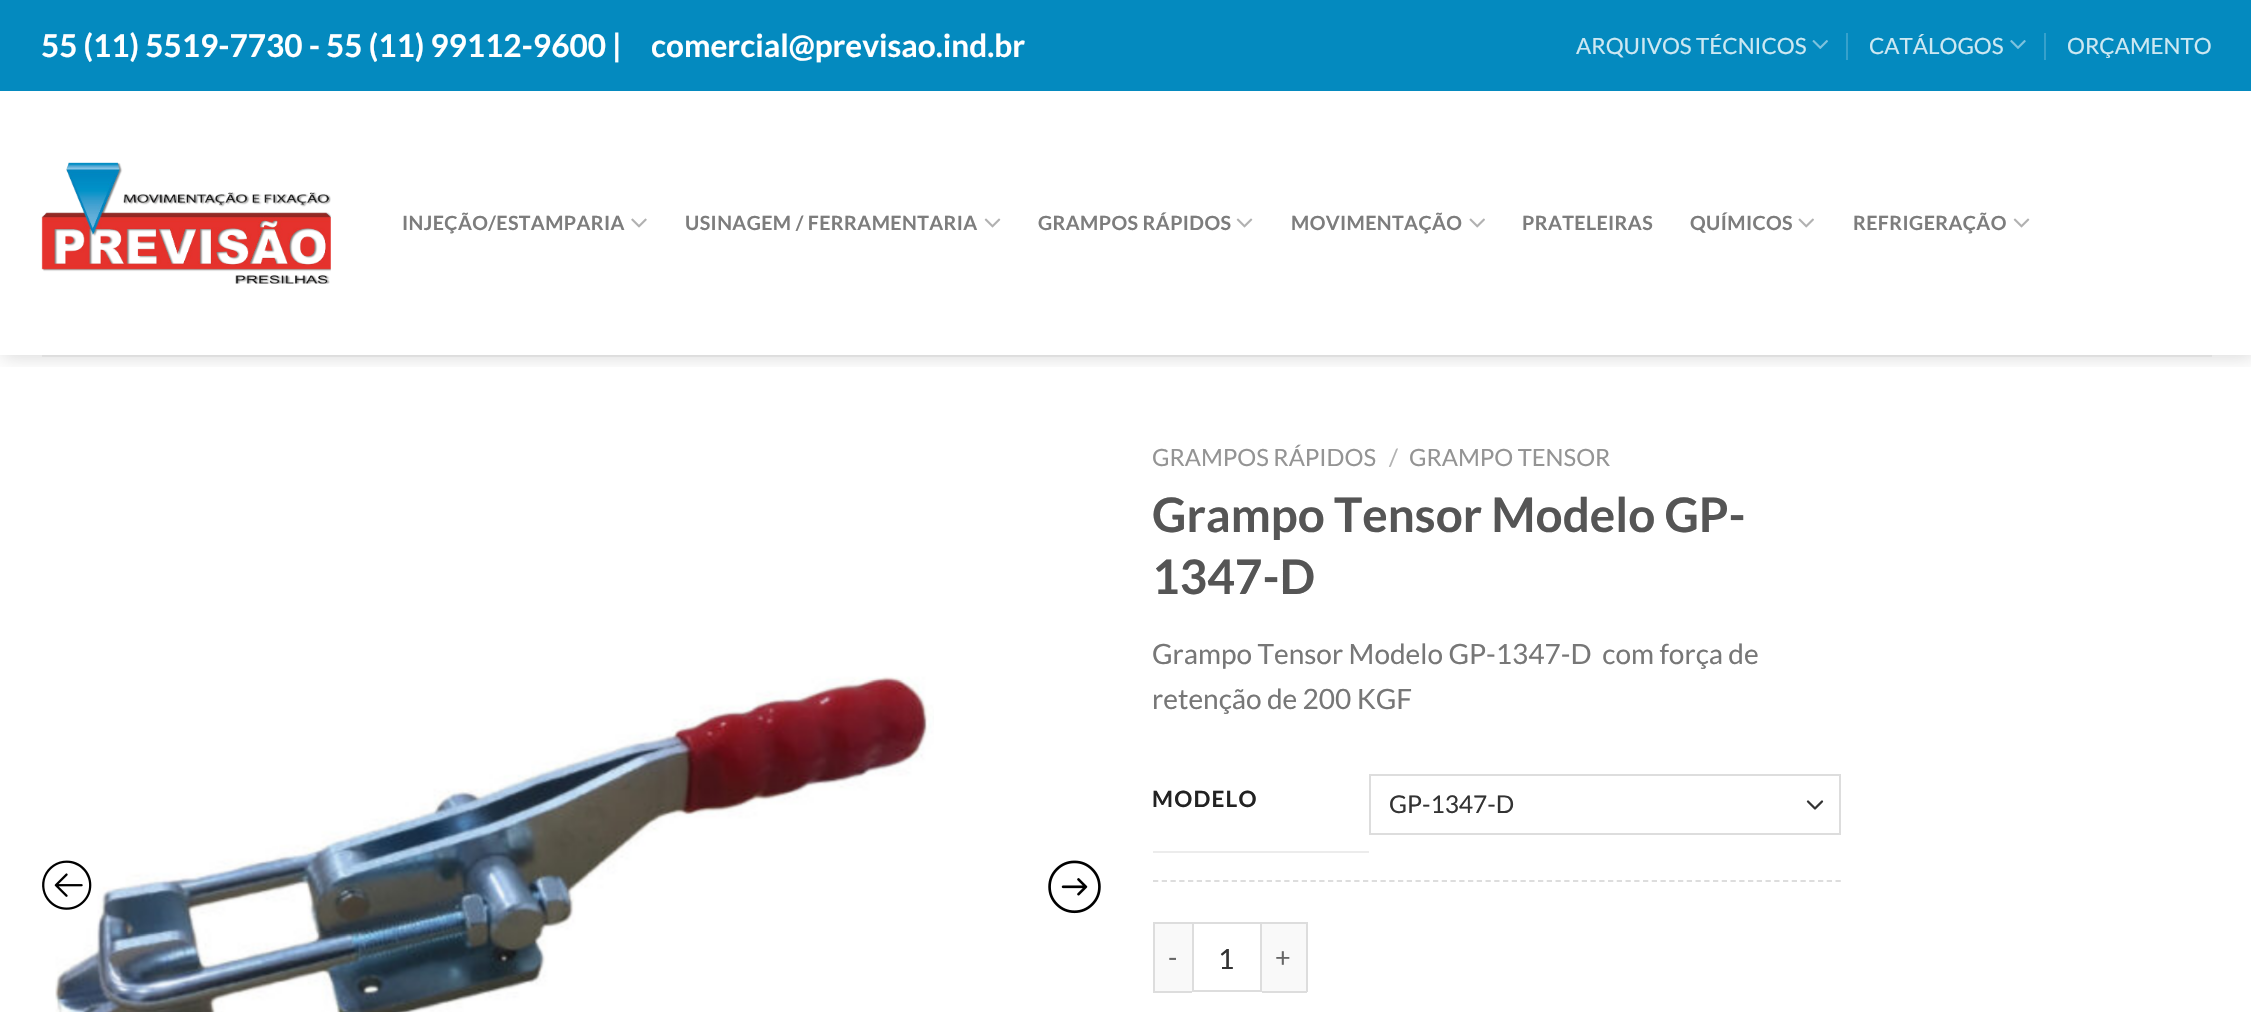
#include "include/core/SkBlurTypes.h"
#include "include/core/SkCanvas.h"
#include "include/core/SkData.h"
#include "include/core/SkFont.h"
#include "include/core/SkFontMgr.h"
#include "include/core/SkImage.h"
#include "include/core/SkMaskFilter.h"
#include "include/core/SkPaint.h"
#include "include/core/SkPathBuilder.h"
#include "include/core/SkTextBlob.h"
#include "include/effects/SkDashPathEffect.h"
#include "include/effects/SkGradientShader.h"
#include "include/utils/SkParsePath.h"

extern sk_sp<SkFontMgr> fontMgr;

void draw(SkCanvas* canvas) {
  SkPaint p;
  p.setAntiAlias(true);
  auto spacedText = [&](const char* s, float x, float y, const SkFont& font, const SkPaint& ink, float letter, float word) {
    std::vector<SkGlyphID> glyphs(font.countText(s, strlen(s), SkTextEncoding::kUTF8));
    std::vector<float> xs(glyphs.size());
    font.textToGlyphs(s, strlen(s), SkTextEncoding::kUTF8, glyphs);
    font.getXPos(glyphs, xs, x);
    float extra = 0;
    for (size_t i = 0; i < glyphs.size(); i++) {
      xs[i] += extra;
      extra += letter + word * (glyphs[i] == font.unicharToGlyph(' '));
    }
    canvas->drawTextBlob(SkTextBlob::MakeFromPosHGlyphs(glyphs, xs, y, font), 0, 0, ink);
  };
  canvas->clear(SK_ColorWHITE);
  canvas->save();
  canvas->clipRect(SkRect::MakeLTRB(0, 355, 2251, 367));
  p.setColor(SkColorSetARGB(38, 0, 0, 0));
  p.setMaskFilter(SkMaskFilter::MakeBlur(kNormal_SkBlurStyle, 9));
  canvas->drawRect(SkRect::MakeLTRB(2, 2, 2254, 357), p);
  p.setMaskFilter(nullptr);
  canvas->restore();
  p.setColor(SkColorSetRGB(4, 138, 191));
  canvas->drawRect(SkRect::MakeLTRB(0, 0, 2251, 91), p);
  canvas->drawImageRect(SkImages::DeferredFromEncodedData(SkData::MakeFromFileName("images/1.png")), SkRect::MakeLTRB(1812, 40, 1828, 49), SkSamplingOptions());
  p.setColor(SkColorSetRGB(54, 161, 204));
  canvas->drawRect(SkRect::MakeLTRB(1846, 33, 1848, 60), p);
  canvas->drawImageRect(SkImages::DeferredFromEncodedData(SkData::MakeFromFileName("images/2.png")), SkRect::MakeLTRB(2010, 40, 2026, 49), SkSamplingOptions());
  canvas->drawRect(SkRect::MakeLTRB(2044, 33, 2046, 60), p);
  canvas->drawImageRect(SkImages::DeferredFromEncodedData(SkData::MakeFromFileName("images/3.png")), SkRect::MakeLTRB(41, 162, 331, 284), SkSamplingOptions());
  canvas->drawImageRect(SkImages::DeferredFromEncodedData(SkData::MakeFromFileName("images/4.png")), SkRect::MakeLTRB(631, 218, 647, 228), SkSamplingOptions());
  canvas->drawImageRect(SkImages::DeferredFromEncodedData(SkData::MakeFromFileName("images/5.png")), SkRect::MakeLTRB(984, 218, 1001, 228), SkSamplingOptions());
  canvas->drawImageRect(SkImages::DeferredFromEncodedData(SkData::MakeFromFileName("images/5.png")), SkRect::MakeLTRB(1236, 218, 1253, 228), SkSamplingOptions());
  canvas->drawImageRect(SkImages::DeferredFromEncodedData(SkData::MakeFromFileName("images/6.png")), SkRect::MakeLTRB(1469, 218, 1485, 228), SkSamplingOptions());
  canvas->drawImageRect(SkImages::DeferredFromEncodedData(SkData::MakeFromFileName("images/6.png")), SkRect::MakeLTRB(1798, 218, 1814, 228), SkSamplingOptions());
  canvas->drawImageRect(SkImages::DeferredFromEncodedData(SkData::MakeFromFileName("images/5.png")), SkRect::MakeLTRB(2013, 218, 2030, 228), SkSamplingOptions());
  p.setColor(SkColorSetARGB(26, 119, 119, 119));
  canvas->drawRect(SkRect::MakeLTRB(42, 355, 2212, 357), p);
  canvas->drawImageRect(SkImages::DeferredFromEncodedData(SkData::MakeFromFileName("images/7.png")), SkRect::MakeLTRB(55, 676, 934, 1012), SkSamplingOptions());
  canvas->drawImageRect(SkImages::DeferredFromEncodedData(SkData::MakeFromFileName("images/8.png")), SkRect::MakeLTRB(42, 860, 92, 910), SkSamplingOptions());
  canvas->drawImageRect(SkImages::DeferredFromEncodedData(SkData::MakeFromFileName("images/9.png")), SkRect::MakeLTRB(1048, 860, 1101, 914), SkSamplingOptions());
  p.setColor(SkColorSetRGB(236, 236, 236));
  canvas->drawRect(SkRect::MakeLTRB(1153, 851, 1369, 853), p);
  p.setStyle(SkPaint::kStroke_Style);
  p.setStrokeWidth(2.3f);
  p.setStrokeCap(SkPaint::kRound_Cap);
  p.setStrokeJoin(SkPaint::kRound_Join);
  p.setColor(SkColorSetRGB(51, 51, 51));
  canvas->drawPath(SkPathBuilder().moveTo(1808, 801.5f).lineTo(1815, 808.5f).lineTo(1822, 801.5f).detach(), p);
  p.setStrokeWidth(2);
  p.setStrokeCap(SkPaint::kButt_Cap);
  p.setStrokeJoin(SkPaint::kMiter_Join);
  p.setColor(SkColorSetRGB(221, 221, 221));
  canvas->drawRect(SkRect::MakeLTRB(1370, 775, 1840, 834), p);
  p.setStrokeWidth(1.8f);
  p.setPathEffect(SkDashPathEffect::Make({{5.25f, 3.5f}}, 0));
  canvas->drawPath(SkPathBuilder().moveTo(1153, 881).lineTo(1841, 881).detach(), p);
  p.setPathEffect(nullptr);
  p.setStyle(SkPaint::kFill_Style);
  p.setColor(SkColorSetRGB(249, 249, 249));
  canvas->drawRect(SkRect::MakeLTRB(1155, 924, 1192, 991), p);
  p.setColor(SkColorSetRGB(221, 221, 221));
  canvas->drawRect(SkRect::MakeLTRB(1153, 922, 1192, 924), p);
  canvas->drawRect(SkRect::MakeLTRB(1153, 991, 1192, 993), p);
  canvas->drawRect(SkRect::MakeLTRB(1153, 922, 1155, 992), p);
  p.setStyle(SkPaint::kStroke_Style);
  p.setStrokeWidth(2);
  canvas->drawRect(SkRect::MakeLTRB(1193, 923, 1261, 991), p);
  p.setStyle(SkPaint::kFill_Style);
  p.setColor(SkColorSetRGB(249, 249, 249));
  canvas->drawRect(SkRect::MakeLTRB(1262, 924, 1306, 991), p);
  p.setColor(SkColorSetRGB(221, 221, 221));
  canvas->drawRect(SkRect::MakeLTRB(1262, 922, 1307, 924), p);
  canvas->drawRect(SkRect::MakeLTRB(1306, 922, 1308, 992), p);
  canvas->drawRect(SkRect::MakeLTRB(1262, 991, 1307, 993), p);
  SkFont font1(fontMgr->matchFamilyStyle("Lato", SkFontStyle::Bold()), 31.5f);
  font1.setSubpixel(true);
  p.setColor(SK_ColorWHITE);
  canvas->drawString("55 (11) 5519-7730 - 55 (11) 99112-9600 |", 41, 57, font1, p);
  canvas->drawString("comercial@previsao.ind.br", 651, 57, font1, p);
  SkFont font2(fontMgr->matchFamilyStyle("Lato", SkFontStyle::Normal()), 22.4f);
  font2.setSubpixel(true);
  p.setColor(SkColorSetRGB(205, 232, 242));
  canvas->drawString("ARQUIVOS TÉCNICOS", 1576, 54, font2, p);
  canvas->drawString("CATÁLOGOS", 1869, 54, font2, p);
  canvas->drawString("ORÇAMENTO", 2067, 54, font2, p);
  SkFont font3(fontMgr->matchFamilyStyle("Lato", SkFontStyle::Bold()), 19.6f);
  font3.setSubpixel(true);
  p.setColor(SkColorSetRGB(125, 125, 125));
  spacedText("INJEÇÃO/ESTAMPARIA", 402, 230, font3, p, 0.4f, 0);
  spacedText("USINAGEM / FERRAMENTARIA", 685, 230, font3, p, 0.4f, 0);
  spacedText("GRAMPOS RÁPIDOS", 1038, 230, font3, p, 0.4f, 0);
  spacedText("MOVIMENTAÇÃO", 1291, 230, font3, p, 0.4f, 0);
  spacedText("PRATELEIRAS", 1522, 230, font3, p, 0.4f, 0);
  spacedText("QUÍMICOS", 1690, 230, font3, p, 0.4f, 0);
  spacedText("REFRIGERAÇÃO", 1853, 230, font3, p, 0.4f, 0);
  SkFont font4(fontMgr->matchFamilyStyle("Lato", SkFontStyle::Normal()), 23.75f);
  font4.setSubpixel(true);
  p.setColor(SkColorSetRGB(148, 148, 148));
  canvas->drawString("GRAMPOS RÁPIDOS", 1152, 466, font4, p);
  p.setColor(SkColorSetRGB(178, 178, 178));
  canvas->drawString("/", 1389, 466, font4, p);
  p.setColor(SkColorSetRGB(148, 148, 148));
  canvas->drawString("GRAMPO TENSOR", 1409, 466, font4, p);
  SkFont font5(fontMgr->matchFamilyStyle("Lato", SkFontStyle::Bold()), 47.6f);
  font5.setSubpixel(true);
  p.setColor(SkColorSetRGB(85, 85, 85));
  canvas->drawString("Grampo Tensor Modelo GP-", 1152, 532, font5, p);
  canvas->drawString("1347-D", 1152, 594, font5, p);
  SkFont font6(fontMgr->matchFamilyStyle("Lato", SkFontStyle::Normal()), 28);
  font6.setSubpixel(true);
  p.setColor(SkColorSetRGB(119, 119, 119));
  canvas->drawString("Grampo Tensor Modelo GP-1347-D  com força de", 1152, 664, font6, p);
  canvas->drawString("retenção de 200 KGF", 1152, 709, font6, p);
  SkFont font7(fontMgr->matchFamilyStyle("Lato", SkFontStyle::Bold()), 22.5f);
  font7.setSubpixel(true);
  p.setColor(SkColorSetRGB(34, 34, 34));
  spacedText("MODELO", 1152, 807, font7, p, 1.25f, 0);
  SkFont font8(fontMgr->matchFamilyStyle("Lato", SkFontStyle::Normal()), 24.5f);
  font8.setSubpixel(true);
  p.setColor(SkColorSetRGB(51, 51, 51));
  canvas->drawString("GP-1347-D", 1389, 813, font8, p);
  SkFont font9(fontMgr->matchFamilyStyle("Lato", SkFontStyle::Normal()), 27);
  font9.setSubpixel(true);
  p.setColor(SkColorSetRGB(102, 102, 102));
  spacedText("-", 1168, 967, font9, p, 1, 0);
  p.setColor(SkColorSetRGB(51, 51, 51));
  canvas->drawString("1", 1218, 969, font6, p);
  p.setColor(SkColorSetRGB(102, 102, 102));
  spacedText("+", 1275, 967, font9, p, 1, 0);
}
